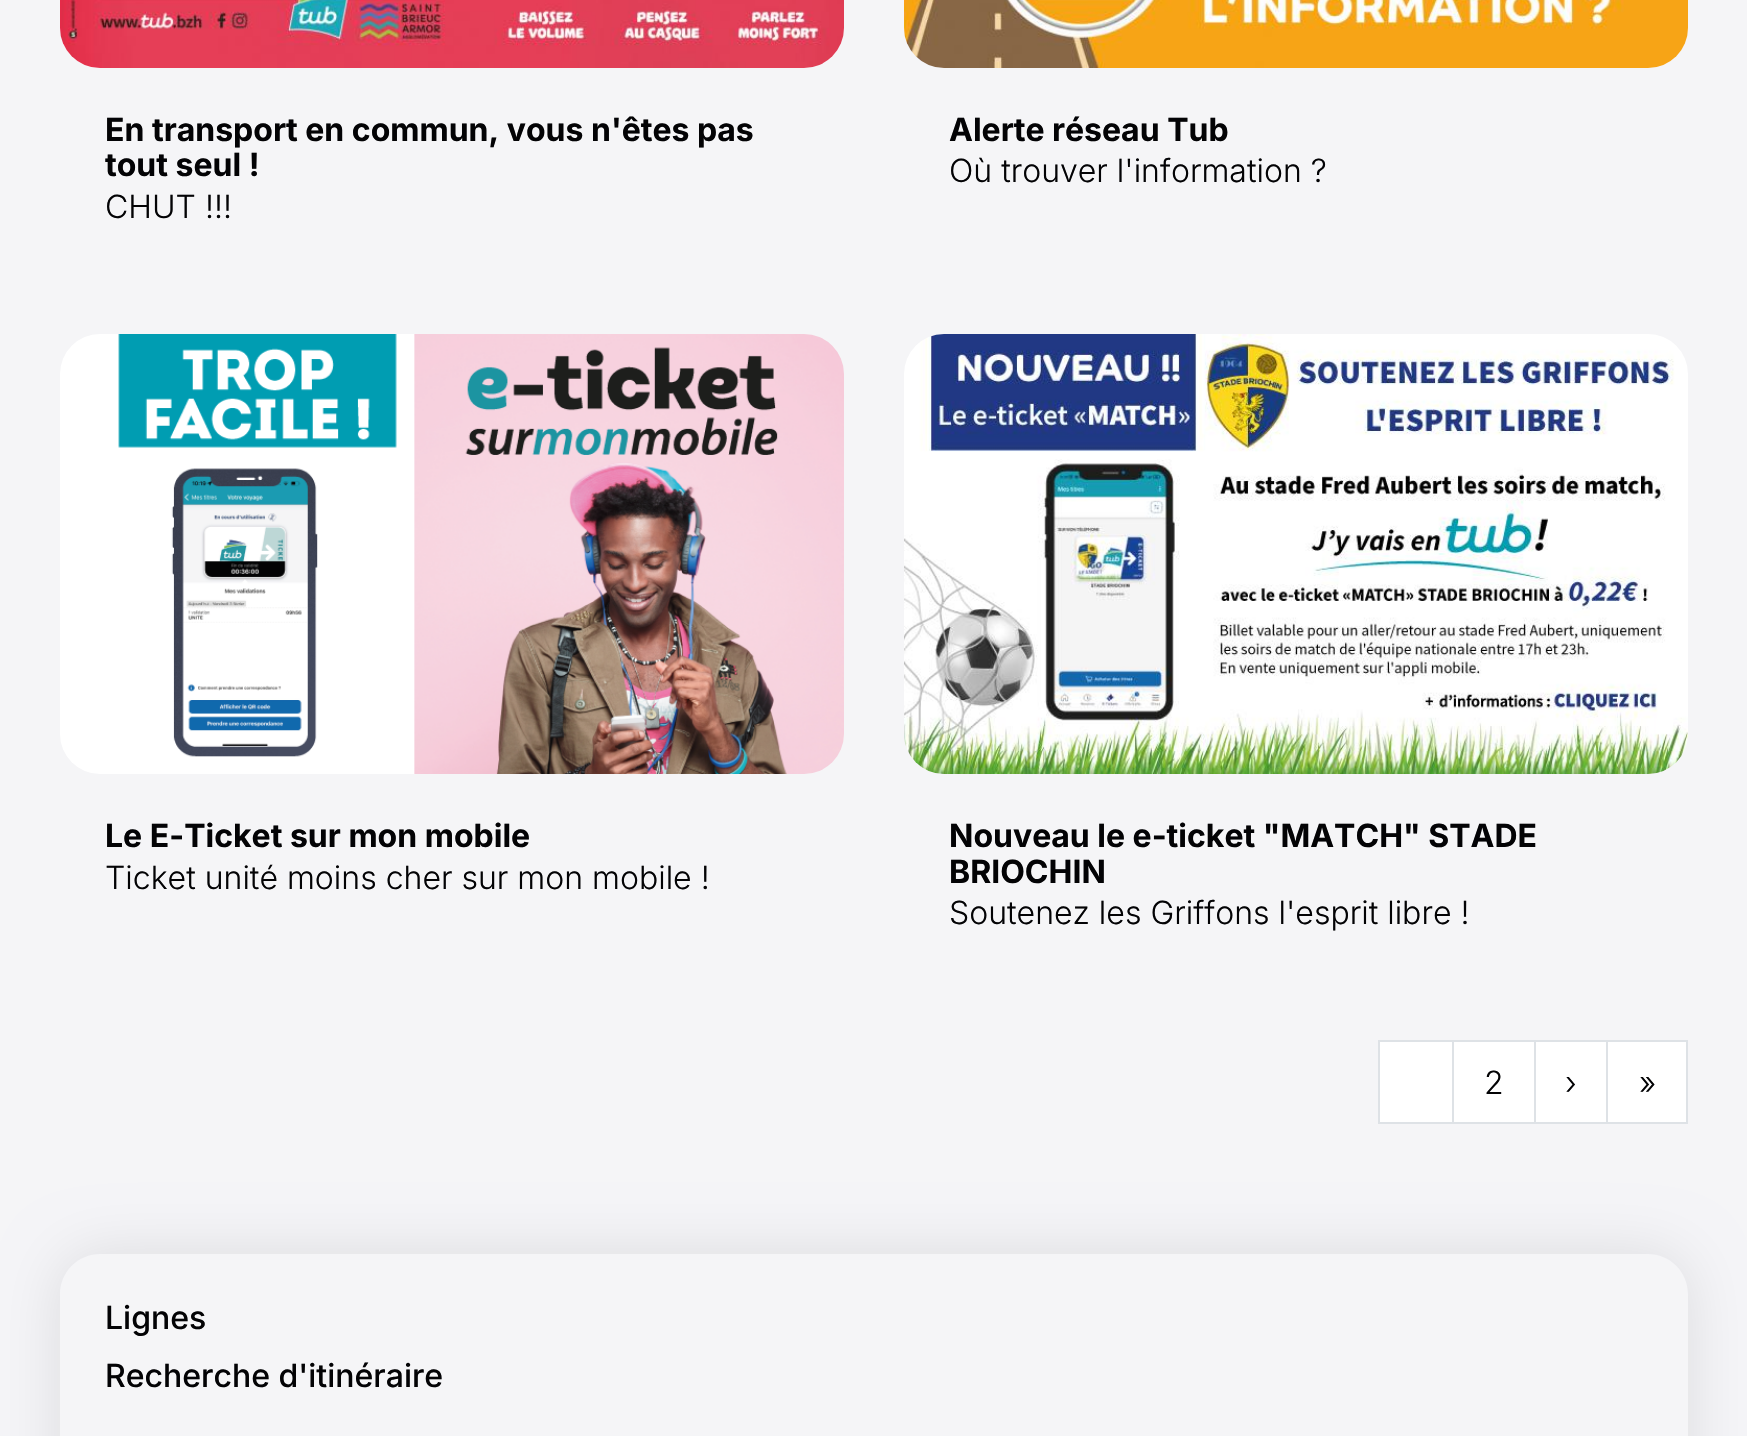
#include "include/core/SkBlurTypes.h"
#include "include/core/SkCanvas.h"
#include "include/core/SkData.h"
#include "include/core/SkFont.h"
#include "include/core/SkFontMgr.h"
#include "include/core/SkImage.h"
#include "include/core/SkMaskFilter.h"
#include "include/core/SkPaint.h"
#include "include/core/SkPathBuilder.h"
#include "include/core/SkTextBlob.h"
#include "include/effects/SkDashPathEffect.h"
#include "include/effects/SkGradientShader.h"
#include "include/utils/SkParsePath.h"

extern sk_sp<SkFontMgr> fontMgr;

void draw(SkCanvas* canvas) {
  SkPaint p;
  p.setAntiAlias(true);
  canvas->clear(SkColorSetRGB(245, 245, 247));
  canvas->drawImageRect(SkImages::DeferredFromEncodedData(SkData::MakeFromFileName("images/1.png")), SkRect::MakeLTRB(60, 0, 844, 68), SkSamplingOptions());
  canvas->drawImageRect(SkImages::DeferredFromEncodedData(SkData::MakeFromFileName("images/2.png")), SkRect::MakeLTRB(904, 0, 1688, 68), SkSamplingOptions());
  canvas->drawImageRect(SkImages::DeferredFromEncodedData(SkData::MakeFromFileName("images/3.png")), SkRect::MakeLTRB(60, 334, 844, 774), SkSamplingOptions());
  canvas->drawImageRect(SkImages::DeferredFromEncodedData(SkData::MakeFromFileName("images/4.png")), SkRect::MakeLTRB(904, 334, 1688, 774), SkSamplingOptions());
  p.setColor(SK_ColorWHITE);
  canvas->drawRect(SkRect::MakeLTRB(1453, 1041, 1535, 1123), p);
  p.setStyle(SkPaint::kStroke_Style);
  p.setStrokeWidth(2);
  p.setColor(SkColorSetRGB(222, 226, 230));
  canvas->drawRect(SkRect::MakeLTRB(1453, 1041, 1535, 1123), p);
  p.setStyle(SkPaint::kFill_Style);
  p.setColor(SK_ColorWHITE);
  canvas->drawRect(SkRect::MakeLTRB(1379, 1041, 1453, 1123), p);
  p.setStyle(SkPaint::kStroke_Style);
  p.setColor(SkColorSetRGB(222, 226, 230));
  canvas->drawRect(SkRect::MakeLTRB(1379, 1041, 1453, 1123), p);
  p.setStyle(SkPaint::kFill_Style);
  p.setColor(SK_ColorWHITE);
  canvas->drawRect(SkRect::MakeLTRB(1535, 1041, 1607, 1123), p);
  p.setStyle(SkPaint::kStroke_Style);
  p.setColor(SkColorSetRGB(222, 226, 230));
  canvas->drawRect(SkRect::MakeLTRB(1535, 1041, 1607, 1123), p);
  p.setStyle(SkPaint::kFill_Style);
  p.setColor(SK_ColorWHITE);
  canvas->drawRect(SkRect::MakeLTRB(1607, 1041, 1687, 1123), p);
  p.setStyle(SkPaint::kStroke_Style);
  p.setColor(SkColorSetRGB(222, 226, 230));
  canvas->drawRect(SkRect::MakeLTRB(1607, 1041, 1687, 1123), p);
  canvas->save();
  canvas->clipPath(SkPathBuilder(SkPathFillType::kEvenOdd).moveTo(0, 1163).lineTo(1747, 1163).lineTo(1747, 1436).lineTo(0, 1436).close().moveTo(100, 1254).lineTo(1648, 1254).cubicTo(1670, 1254, 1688, 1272, 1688, 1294).lineTo(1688, 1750).cubicTo(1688, 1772, 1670, 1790, 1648, 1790).lineTo(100, 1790).cubicTo(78, 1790, 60, 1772, 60, 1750).lineTo(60, 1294).cubicTo(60, 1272, 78, 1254, 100, 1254).close().detach(), true);
  p.setStyle(SkPaint::kFill_Style);
  p.setColor(SkColorSetARGB(26, 3, 3, 5));
  p.setMaskFilter(SkMaskFilter::MakeBlur(kNormal_SkBlurStyle, 30));
  canvas->drawRoundRect(SkRect::MakeLTRB(60, 1254, 1688, 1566), 40, 40, p);
  p.setMaskFilter(nullptr);
  canvas->restore();
  SkFont font1(fontMgr->matchFamilyStyle("Inter", SkFontStyle::Bold()), 32);
  font1.setSubpixel(true);
  p.setColor(SkColorSetRGB(3, 3, 5));
  canvas->drawString("En transport en commun, vous n'êtes pas", 105, 141, font1, p);
  canvas->drawString("tout seul !", 105, 176, font1, p);
  SkFont font2(fontMgr->matchFamilyStyle("Inter", SkFontStyle(300, SkFontStyle::kNormal_Width, SkFontStyle::kUpright_Slant)), 32);
  font2.setSubpixel(true);
  canvas->drawString("CHUT !!!", 105, 218, font2, p);
  canvas->drawString("Alerte réseau Tub", 949, 141, font1, p);
  canvas->drawString("Où trouver l'information ?", 949, 182, font2, p);
  canvas->drawString("Le E-Ticket sur mon mobile", 105, 847, font1, p);
  canvas->drawString("Ticket unité moins cher sur mon mobile !", 105, 889, font2, p);
  canvas->drawString("Nouveau le e-ticket \"MATCH\" STADE", 949, 847, font1, p);
  canvas->drawString("BRIOCHIN", 949, 883, font1, p);
  canvas->drawString("Soutenez les Griffons l'esprit libre !", 949, 924, font2, p);
  canvas->drawString("2", 1484, 1094, font2, p);
  canvas->drawString("›", 1565, 1094, font2, p);
  canvas->drawString("»", 1639, 1094, font2, p);
  SkFont font3(fontMgr->matchFamilyStyle("Inter", SkFontStyle(500, SkFontStyle::kNormal_Width, SkFontStyle::kUpright_Slant)), 32);
  font3.setSubpixel(true);
  canvas->drawString("Lignes", 105, 1329, font3, p);
  canvas->drawString("Recherche d'itinéraire", 105, 1387, font3, p);
}
